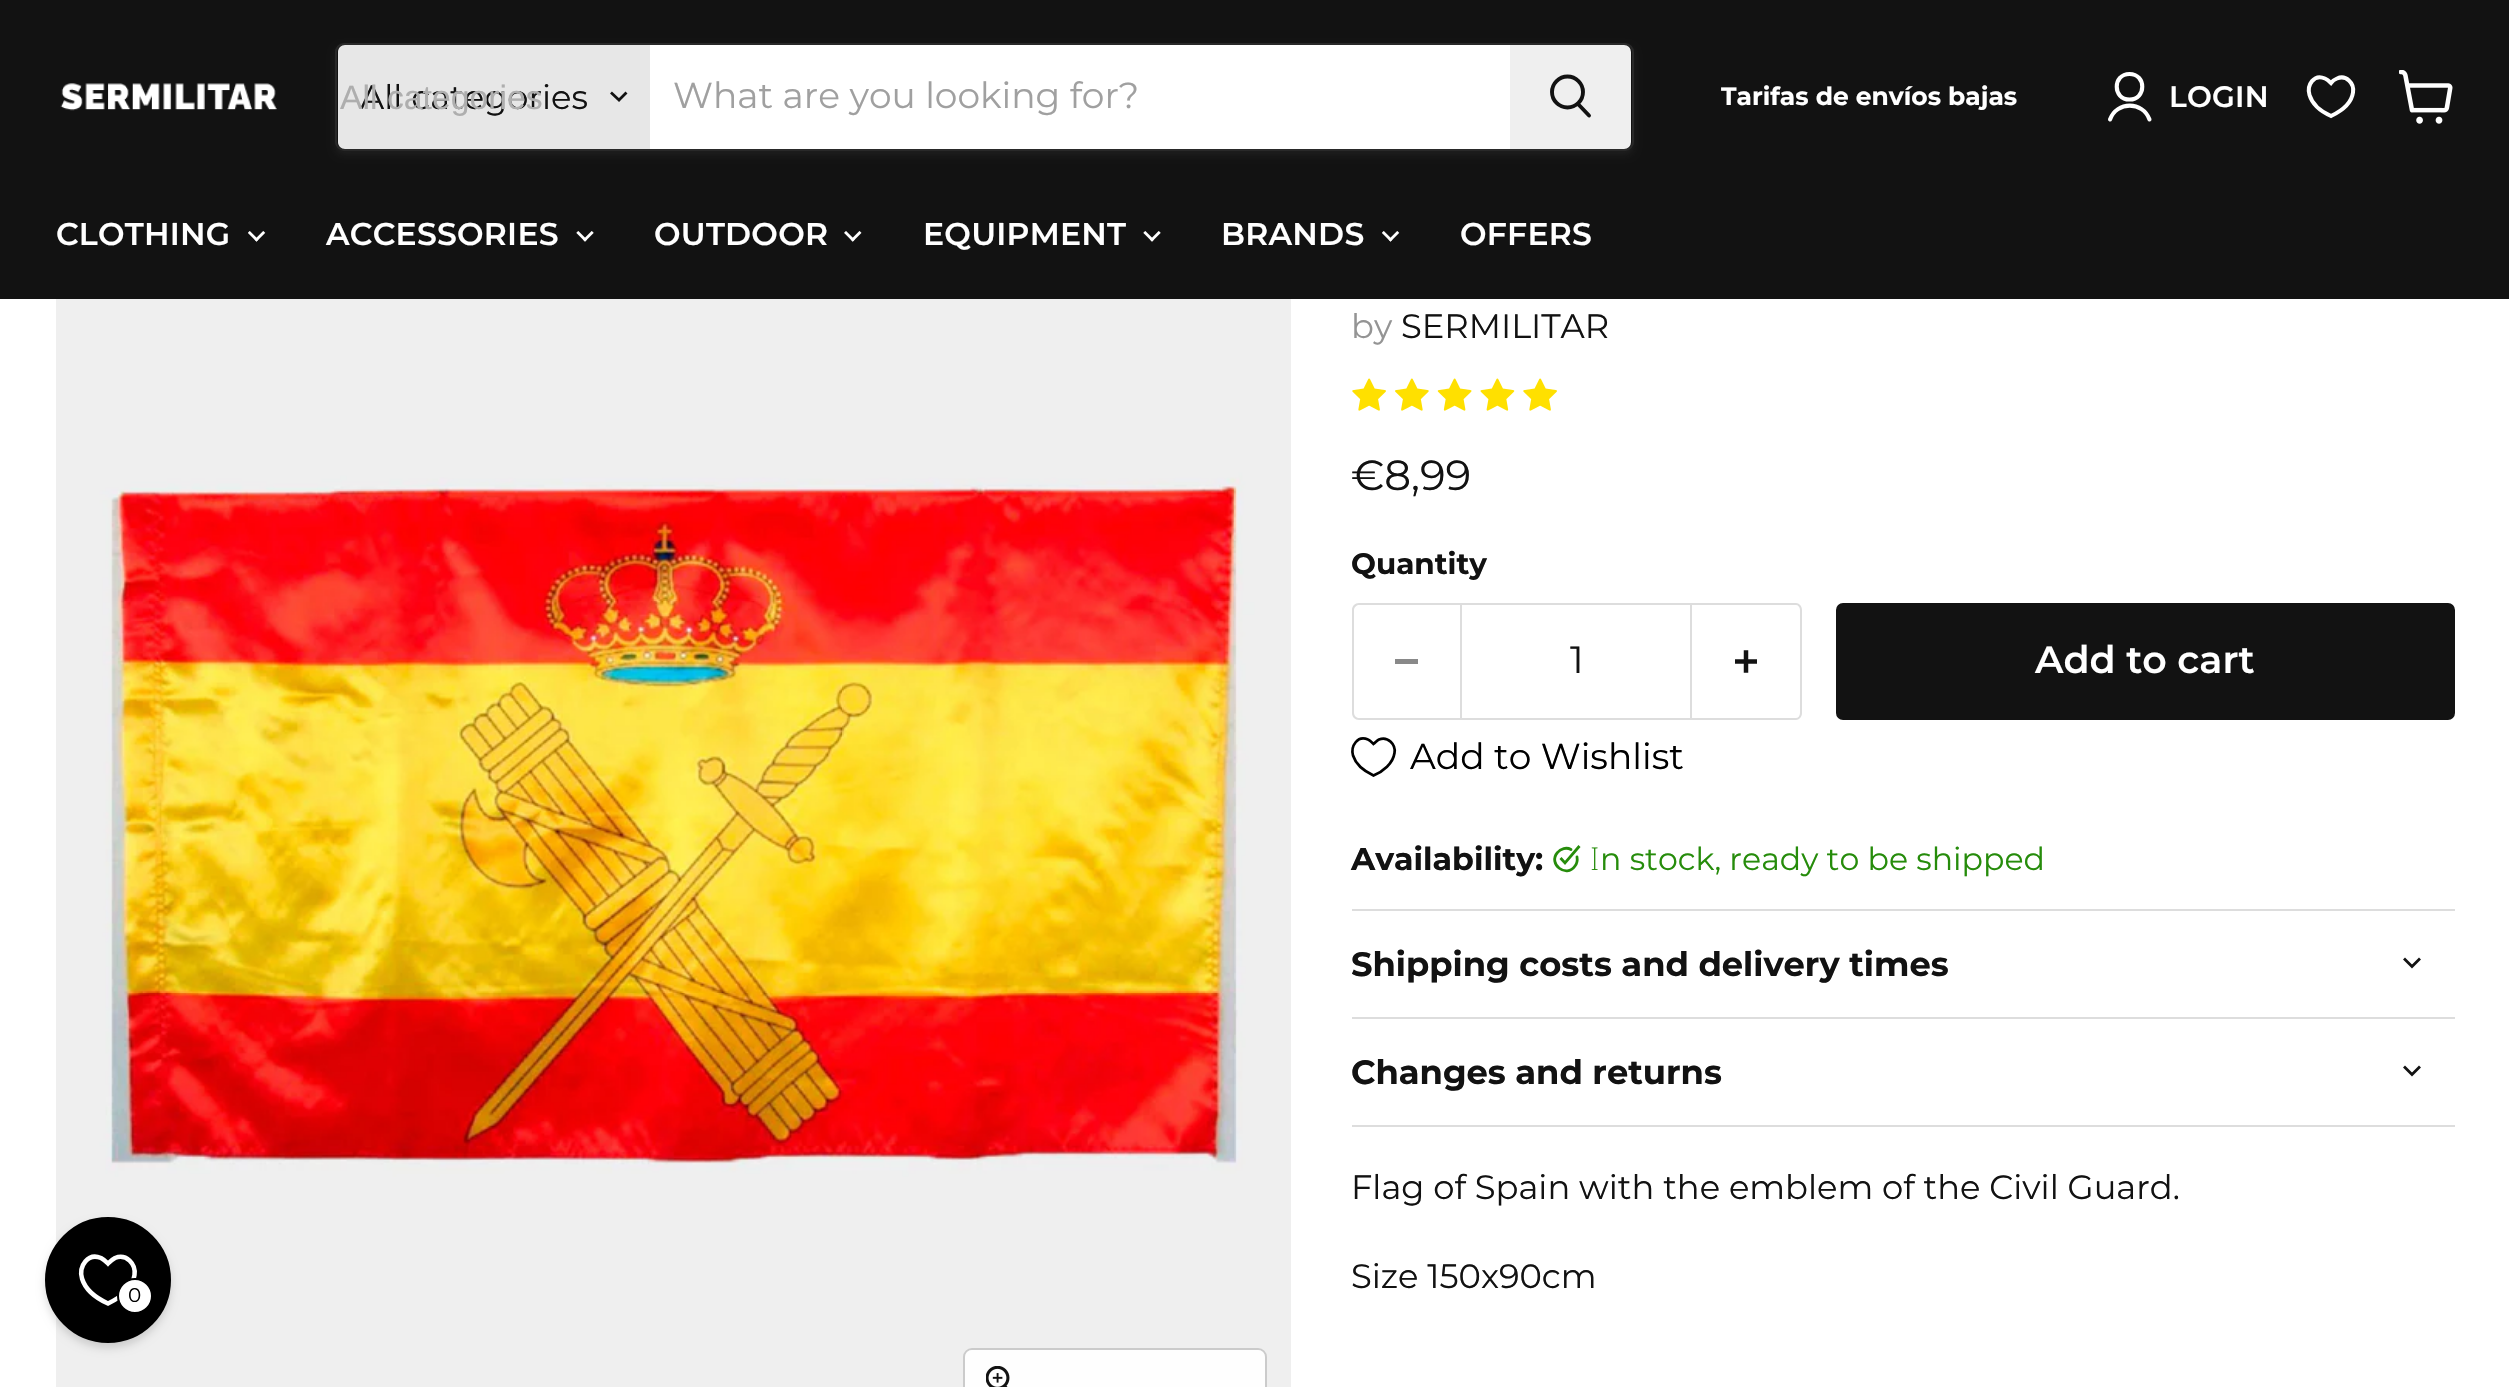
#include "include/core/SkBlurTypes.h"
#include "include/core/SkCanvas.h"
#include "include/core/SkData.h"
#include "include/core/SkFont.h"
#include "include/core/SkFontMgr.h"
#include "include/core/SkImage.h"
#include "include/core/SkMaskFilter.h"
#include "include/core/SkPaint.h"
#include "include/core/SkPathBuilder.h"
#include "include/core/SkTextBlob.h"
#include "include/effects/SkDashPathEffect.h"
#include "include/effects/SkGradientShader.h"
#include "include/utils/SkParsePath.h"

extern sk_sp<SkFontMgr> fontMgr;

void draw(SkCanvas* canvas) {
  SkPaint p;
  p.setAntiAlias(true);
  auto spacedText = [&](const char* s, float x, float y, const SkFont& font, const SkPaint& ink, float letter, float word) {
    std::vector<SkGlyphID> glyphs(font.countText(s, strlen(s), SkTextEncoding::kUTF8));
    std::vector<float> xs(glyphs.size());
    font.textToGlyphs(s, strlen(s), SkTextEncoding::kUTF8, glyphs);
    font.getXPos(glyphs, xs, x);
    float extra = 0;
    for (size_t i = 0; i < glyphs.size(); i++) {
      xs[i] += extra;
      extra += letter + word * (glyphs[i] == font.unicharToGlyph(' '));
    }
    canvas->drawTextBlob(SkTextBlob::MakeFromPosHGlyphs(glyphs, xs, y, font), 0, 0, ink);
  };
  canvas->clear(SK_ColorWHITE);
  p.setColor(SkColorSetRGB(18, 18, 18));
  canvas->drawRect(SkRect::MakeLTRB(0, 0, 2509, 299), p);
  canvas->drawImageRect(SkImages::DeferredFromEncodedData(SkData::MakeFromFileName("images/1.png")), SkRect::MakeLTRB(60, 83, 277, 111), SkSamplingOptions());
  canvas->save();
  canvas->clipPath(SkPathBuilder(SkPathFillType::kEvenOdd).moveTo(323, 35).lineTo(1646, 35).lineTo(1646, 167).lineTo(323, 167).close().moveTo(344, 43).lineTo(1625, 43).cubicTo(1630, 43, 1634, 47, 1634, 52).lineTo(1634, 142).cubicTo(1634, 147, 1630, 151, 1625, 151).lineTo(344, 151).cubicTo(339, 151, 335, 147, 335, 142).lineTo(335, 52).cubicTo(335, 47, 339, 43, 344, 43).close().detach(), true);
  p.setColor(SkColorSetARGB(28, 128, 128, 128));
  p.setMaskFilter(SkMaskFilter::MakeBlur(kNormal_SkBlurStyle, 3.5f));
  canvas->drawRoundRect(SkRect::MakeLTRB(335, 47, 1634, 155), 9, 9, p);
  p.setMaskFilter(nullptr);
  canvas->restore();
  p.setStyle(SkPaint::kStroke_Style);
  p.setStrokeWidth(2);
  p.setColor(SkColorSetARGB(51, 128, 128, 128));
  canvas->drawRoundRect(SkRect::MakeLTRB(336, 44, 1633, 150), 8, 8, p);
  p.setStyle(SkPaint::kFill_Style);
  p.setColor(SkColorSetRGB(231, 231, 231));
  canvas->drawPath(SkPathBuilder().moveTo(345, 45).lineTo(650, 45).lineTo(650, 149).lineTo(345, 149).cubicTo(341, 149, 338, 146, 338, 142).lineTo(338, 52).cubicTo(338, 48, 341, 45, 345, 45).close().detach(), p);
  p.setStyle(SkPaint::kStroke_Style);
  p.setStrokeWidth(2.8f);
  p.setStrokeCap(SkPaint::kSquare_Cap);
  p.setColor(SkColorSetRGB(18, 18, 18));
  canvas->drawPath(SkPathBuilder().moveTo(619, 100).lineTo(625.5f, 93.5f).moveTo(619, 100).lineTo(612, 93.5f).detach(), p);
  p.setStyle(SkPaint::kFill_Style);
  p.setColor(SK_ColorWHITE);
  canvas->drawRect(SkRect::MakeLTRB(650, 45, 1510, 149), p);
  p.setColor(SkColorSetRGB(239, 239, 239));
  canvas->drawPath(SkPathBuilder().moveTo(1511, 46).lineTo(1624, 46).cubicTo(1627.5f, 46, 1630, 48.5f, 1630, 52).lineTo(1630, 142).cubicTo(1630, 145.5f, 1627.5f, 148, 1624, 148).lineTo(1511, 148).close().detach(), p);
  p.setStyle(SkPaint::kStroke_Style);
  p.setStrokeWidth(2);
  p.setStrokeCap(SkPaint::kButt_Cap);
  canvas->drawPath(SkPathBuilder().moveTo(1511, 46).lineTo(1624, 46).cubicTo(1627.5f, 46, 1630, 48.5f, 1630, 52).lineTo(1630, 142).cubicTo(1630, 145.5f, 1627.5f, 148, 1624, 148).lineTo(1511, 148).close().detach(), p);
  p.setStrokeWidth(3.9f);
  p.setStrokeCap(SkPaint::kRound_Cap);
  p.setColor(SkColorSetRGB(18, 18, 18));
  canvas->drawPath(SkPathBuilder().moveTo(1589, 115.5f).lineTo(1578.5f, 104.5f).detach(), p);
  p.setStrokeCap(SkPaint::kButt_Cap);
  canvas->drawCircle(1567.5f, 92, 15.5f, p);
  p.setStrokeWidth(4.1f);
  p.setStrokeCap(SkPaint::kRound_Cap);
  p.setStrokeJoin(SkPaint::kRound_Join);
  p.setColor(SK_ColorWHITE);
  canvas->drawPath(SkPathBuilder().moveTo(2129.5f, 99.5f).cubicTo(2146.5f, 99.5f, 2146.5f, 74, 2129.5f, 74).cubicTo(2112.5f, 74, 2112.5f, 99.5f, 2129.5f, 99.5f).close().moveTo(2149.5f, 119.5f).cubicTo(2143, 101, 2116.5f, 101, 2110, 119.5f).detach(), p);
  p.setStrokeWidth(4);
  p.setStrokeCap(SkPaint::kButt_Cap);
  p.setStrokeJoin(SkPaint::kMiter_Join);
  canvas->drawPath(SkPathBuilder().moveTo(2331, 116).cubicTo(2322, 112, 2312.5f, 105, 2309.5f, 95).cubicTo(2306.5f, 85, 2314, 73.5f, 2325, 78.5f).cubicTo(2327.5f, 79.5f, 2329, 81, 2331, 83).cubicTo(2332.5f, 81, 2334.5f, 79.5f, 2337, 78.5f).cubicTo(2346, 74.5f, 2354.5f, 83, 2353, 92.5f).cubicTo(2351.5f, 103.5f, 2340.5f, 111.5f, 2331, 116).close().detach(), p);
  canvas->drawImageRect(SkImages::DeferredFromEncodedData(SkData::MakeFromFileName("images/2.png")), SkRect::MakeLTRB(2399, 70, 2453, 124), SkSamplingOptions());
  canvas->drawImageRect(SkImages::DeferredFromEncodedData(SkData::MakeFromFileName("images/3.png")), SkRect::MakeLTRB(248, 231, 266, 242), SkSamplingOptions());
  canvas->drawImageRect(SkImages::DeferredFromEncodedData(SkData::MakeFromFileName("images/4.png")), SkRect::MakeLTRB(576, 231, 594, 242), SkSamplingOptions());
  canvas->drawImageRect(SkImages::DeferredFromEncodedData(SkData::MakeFromFileName("images/5.png")), SkRect::MakeLTRB(844, 231, 862, 242), SkSamplingOptions());
  canvas->drawImageRect(SkImages::DeferredFromEncodedData(SkData::MakeFromFileName("images/4.png")), SkRect::MakeLTRB(1143, 231, 1161, 242), SkSamplingOptions());
  canvas->drawImageRect(SkImages::DeferredFromEncodedData(SkData::MakeFromFileName("images/3.png")), SkRect::MakeLTRB(1382, 231, 1400, 242), SkSamplingOptions());
  canvas->drawImageRect(SkImages::DeferredFromEncodedData(SkData::MakeFromFileName("images/6.png")), SkRect::MakeLTRB(56, 299, 1291, 1387), SkSamplingOptions());
  p.setStrokeWidth(2);
  p.setColor(SkColorSetRGB(203, 203, 203));
  canvas->drawRoundRect(SkRect::MakeLTRB(964, 1349, 1266, 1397), 8, 8, p);
  p.setStyle(SkPaint::kFill_Style);
  p.setColor(SkColorSetARGB(230, 255, 255, 255));
  canvas->drawRoundRect(SkRect::MakeLTRB(965, 1350, 1265, 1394), 7, 7, p);
  canvas->drawImageRect(SkImages::DeferredFromEncodedData(SkData::MakeFromFileName("images/7.png")), SkRect::MakeLTRB(986, 1366, 1010, 1387), SkSamplingOptions());
  canvas->drawImageRect(SkImages::DeferredFromEncodedData(SkData::MakeFromFileName("images/8.png")), SkRect::MakeLTRB(1352, 378, 1386, 411), SkSamplingOptions());
  canvas->drawImageRect(SkImages::DeferredFromEncodedData(SkData::MakeFromFileName("images/9.png")), SkRect::MakeLTRB(1395, 378, 1429, 411), SkSamplingOptions());
  canvas->drawImageRect(SkImages::DeferredFromEncodedData(SkData::MakeFromFileName("images/10.png")), SkRect::MakeLTRB(1437, 378, 1472, 411), SkSamplingOptions());
  canvas->drawImageRect(SkImages::DeferredFromEncodedData(SkData::MakeFromFileName("images/11.png")), SkRect::MakeLTRB(1480, 378, 1515, 411), SkSamplingOptions());
  canvas->drawImageRect(SkImages::DeferredFromEncodedData(SkData::MakeFromFileName("images/8.png")), SkRect::MakeLTRB(1523, 378, 1557, 411), SkSamplingOptions());
  p.setColor(SkColorSetRGB(221, 221, 221));
  canvas->drawPath(SkPathBuilder(SkPathFillType::kEvenOdd).moveTo(1359, 603).lineTo(1460, 603).lineTo(1460, 720).lineTo(1359, 720).cubicTo(1355, 720, 1352, 717, 1352, 713).lineTo(1352, 610).cubicTo(1352, 606, 1355, 603, 1359, 603).close().moveTo(1359, 605).lineTo(1460, 605).lineTo(1460, 718).lineTo(1359, 718).cubicTo(1357, 718, 1354, 716, 1354, 713).lineTo(1354, 610).cubicTo(1354, 607, 1357, 605, 1359, 605).close().detach(), p);
  p.setColor(SkColorSetRGB(137, 137, 137));
  canvas->drawRect(SkRect::MakeLTRB(1395, 659, 1418, 664), p);
  p.setStyle(SkPaint::kStroke_Style);
  p.setColor(SkColorSetRGB(221, 221, 221));
  canvas->drawRect(SkRect::MakeLTRB(1461, 604, 1691, 719), p);
  p.setStyle(SkPaint::kFill_Style);
  canvas->drawPath(SkPathBuilder(SkPathFillType::kEvenOdd).moveTo(1692, 603).lineTo(1796, 603).cubicTo(1799, 603, 1802, 606, 1802, 610).lineTo(1802, 713).cubicTo(1802, 717, 1799, 720, 1796, 720).lineTo(1692, 720).close().moveTo(1692, 605).lineTo(1796, 605).cubicTo(1798, 605, 1800, 607, 1800, 610).lineTo(1800, 713).cubicTo(1800, 716, 1798, 718, 1796, 718).lineTo(1692, 718).close().detach(), p);
  canvas->drawImageRect(SkImages::DeferredFromEncodedData(SkData::MakeFromFileName("images/12.png")), SkRect::MakeLTRB(1735, 650, 1757, 673), SkSamplingOptions());
  p.setColor(SkColorSetRGB(18, 18, 18));
  canvas->drawRoundRect(SkRect::MakeLTRB(1837, 604, 2454, 719), 6, 6, p);
  p.setStyle(SkPaint::kStroke_Style);
  canvas->drawRoundRect(SkRect::MakeLTRB(1837, 604, 2454, 719), 6, 6, p);
  p.setStrokeWidth(2.7f);
  p.setColor(SK_ColorBLACK);
  canvas->drawPath(SkPathBuilder().moveTo(1373.5f, 775.5f).cubicTo(1365, 771.5f, 1356, 765, 1353, 755.5f).cubicTo(1350.5f, 746, 1357.5f, 735, 1368, 739.5f).cubicTo(1370.5f, 740.5f, 1372, 742.5f, 1373.5f, 744).cubicTo(1375.5f, 742.5f, 1377, 740.5f, 1379, 739.5f).cubicTo(1388, 736, 1396, 744.5f, 1394.5f, 753).cubicTo(1393, 763.5f, 1383, 771.5f, 1373.5f, 775.5f).close().detach(), p);
  p.setStrokeWidth(2.8f);
  p.setColor(SkColorSetRGB(38, 140, 11));
  canvas->drawPath(SkPathBuilder().moveTo(1560.5f, 858).lineTo(1565, 863).lineTo(1579.5f, 846).detach(), p);
  p.setStrokeCap(SkPaint::kRound_Cap);
  p.setStrokeJoin(SkPaint::kRound_Join);
  canvas->drawPath(SkPathBuilder().moveTo(1577, 857).cubicTo(1577.5f, 860, 1577, 863.5f, 1575, 866).cubicTo(1566.5f, 878.5f, 1547.5f, 864, 1557.5f, 852.5f).cubicTo(1560.5f, 848.5f, 1566.5f, 847, 1571, 849.5f).detach(), p);
  p.setStyle(SkPaint::kFill_Style);
  p.setColor(SkColorSetRGB(221, 221, 221));
  canvas->drawRect(SkRect::MakeLTRB(1352, 909, 2455, 911), p);
  canvas->drawRect(SkRect::MakeLTRB(1352, 1017, 2455, 1019), p);
  p.setStyle(SkPaint::kStroke_Style);
  p.setStrokeCap(SkPaint::kSquare_Cap);
  p.setStrokeJoin(SkPaint::kMiter_Join);
  p.setColor(SkColorSetRGB(18, 18, 18));
  canvas->drawPath(SkPathBuilder().moveTo(2412, 966.5f).lineTo(2419, 959.5f).moveTo(2412, 966.5f).lineTo(2405, 959.5f).detach(), p);
  p.setStyle(SkPaint::kFill_Style);
  p.setColor(SkColorSetRGB(221, 221, 221));
  canvas->drawRect(SkRect::MakeLTRB(1352, 1125, 2455, 1127), p);
  p.setStyle(SkPaint::kStroke_Style);
  p.setColor(SkColorSetRGB(18, 18, 18));
  canvas->drawPath(SkPathBuilder().moveTo(2412, 1074.5f).lineTo(2419, 1067.5f).moveTo(2412, 1074.5f).lineTo(2405, 1067.5f).detach(), p);
  p.setStyle(SkPaint::kFill_Style);
  p.setColor(SkColorSetARGB(38, 0, 0, 0));
  p.setMaskFilter(SkMaskFilter::MakeBlur(kNormal_SkBlurStyle, 4.5f));
  canvas->drawRoundRect(SkRect::MakeLTRB(45, 1222, 171, 1348), 63, 63, p);
  p.setMaskFilter(nullptr);
  p.setColor(SK_ColorBLACK);
  canvas->drawCircle(108, 1280, 60.5f, p);
  p.setStyle(SkPaint::kStroke_Style);
  p.setStrokeWidth(5);
  p.setStrokeCap(SkPaint::kButt_Cap);
  canvas->drawCircle(108, 1280, 60.5f, p);
  p.setStrokeWidth(4.5f);
  p.setColor(SK_ColorWHITE);
  canvas->drawPath(SkPathBuilder().moveTo(108, 1303.5f).cubicTo(97, 1298.5f, 85.5f, 1290, 82, 1278.5f).cubicTo(78.5f, 1266, 88, 1252.5f, 101, 1258).cubicTo(104, 1259.5f, 106, 1261.5f, 108, 1263.5f).cubicTo(110, 1261.5f, 112, 1259.5f, 115, 1258).cubicTo(126.5f, 1253.5f, 136, 1264, 134.5f, 1275).cubicTo(132.5f, 1288.5f, 119.5f, 1298, 108, 1303.5f).close().detach(), p);
  p.setStyle(SkPaint::kFill_Style);
  canvas->drawCircle(135, 1296, 17, p);
  p.setStyle(SkPaint::kStroke_Style);
  p.setStrokeWidth(2);
  p.setColor(SK_ColorBLACK);
  canvas->drawCircle(135, 1296, 17, p);
  SkFont font1(fontMgr->matchFamilyStyle("Montserrat", SkFontStyle::Normal()), 33.75f);
  font1.setSubpixel(true);
  p.setStyle(SkPaint::kFill_Style);
  p.setColor(SkColorSetRGB(18, 18, 18));
  canvas->drawString("All categories", 360, 109, font1, p);
  SkFont font2(fontMgr->matchFamilyStyle("Liberation Sans", SkFontStyle::Normal()), 33.75f);
  font2.setSubpixel(true);
  p.setColor(SkColorSetRGB(174, 174, 174));
  canvas->drawString("All categories", 340, 109, font2, p);
  SkFont font3(fontMgr->matchFamilyStyle("Montserrat", SkFontStyle::Normal()), 36);
  font3.setSubpixel(true);
  p.setColor(SkColorSetRGB(160, 160, 160));
  canvas->drawString("What are you looking for?", 673, 108, font3, p);
  SkFont font4(fontMgr->matchFamilyStyle("Montserrat", SkFontStyle::Bold()), 25);
  font4.setSubpixel(true);
  p.setColor(SK_ColorWHITE);
  canvas->drawString("Tarifas de envíos bajas", 1721, 105, font4, p);
  SkFont font5(fontMgr->matchFamilyStyle("Montserrat", SkFontStyle(600, SkFontStyle::kNormal_Width, SkFontStyle::kUpright_Slant)), 29.5f);
  font5.setSubpixel(true);
  spacedText("LOGIN", 2169, 107, font5, p, 0.25f, 0);
  SkFont font6(fontMgr->matchFamilyStyle("Montserrat", SkFontStyle(600, SkFontStyle::kNormal_Width, SkFontStyle::kUpright_Slant)), 31.5f);
  font6.setSubpixel(true);
  spacedText("CLOTHING", 56, 245, font6, p, 0.25f, 0);
  spacedText("ACCESSORIES", 326, 245, font6, p, 0.25f, 0);
  spacedText("OUTDOOR", 654, 245, font6, p, 0.25f, 0);
  spacedText("EQUIPMENT", 923, 245, font6, p, 0.25f, 0);
  spacedText("BRANDS", 1221, 245, font6, p, 0.25f, 0);
  spacedText("OFFERS", 1460, 245, font6, p, 0.25f, 0);
  p.setColor(SkColorSetRGB(148, 148, 148));
  canvas->drawString("by", 1351, 338, font1, p);
  p.setColor(SkColorSetRGB(18, 18, 18));
  canvas->drawString("SERMILITAR", 1401, 338, font1, p);
  SkFont font7(fontMgr->matchFamilyStyle("Montserrat", SkFontStyle::Normal()), 42);
  font7.setSubpixel(true);
  canvas->drawString("€8,99", 1351, 490, font7, p);
  SkFont font8(fontMgr->matchFamilyStyle("Montserrat", SkFontStyle::Bold()), 29.5f);
  font8.setSubpixel(true);
  canvas->drawString("Quantity", 1351, 574, font8, p);
  SkFont font9(fontMgr->matchFamilyStyle("Montserrat", SkFontStyle::Normal()), 38);
  font9.setSubpixel(true);
  canvas->drawString("1", 1570, 673, font9, p);
  SkFont font10(fontMgr->matchFamilyStyle("Montserrat", SkFontStyle(600, SkFontStyle::kNormal_Width, SkFontStyle::kUpright_Slant)), 38);
  font10.setSubpixel(true);
  p.setColor(SK_ColorWHITE);
  canvas->drawString("Add to cart", 2035, 673, font10, p);
  p.setColor(SK_ColorBLACK);
  canvas->drawString("Add to Wishlist", 1410, 769, font3, p);
  SkFont font11(fontMgr->matchFamilyStyle("Montserrat", SkFontStyle::Bold()), 31.6f);
  font11.setSubpixel(true);
  p.setColor(SkColorSetRGB(18, 18, 18));
  canvas->drawString("Availability:", 1351, 870, font11, p);
  SkFont font12(fontMgr->matchFamilyStyle("Noto Sans", SkFontStyle(200, SkFontStyle::kNormal_Width, SkFontStyle::kUpright_Slant)), 31.6f);
  font12.setSubpixel(true);
  p.setColor(SkColorSetRGB(38, 140, 11));
  canvas->drawString("I", 1590, 870, font12, p);
  SkFont font13(fontMgr->matchFamilyStyle("Montserrat", SkFontStyle::Normal()), 31.6f);
  font13.setSubpixel(true);
  canvas->drawString("n stock, ready to be shipped", 1600, 870, font13, p);
  SkFont font14(fontMgr->matchFamilyStyle("Montserrat", SkFontStyle::Bold()), 33.75f);
  font14.setSubpixel(true);
  p.setColor(SkColorSetRGB(18, 18, 18));
  canvas->drawString("Shipping costs and delivery times", 1351, 976, font14, p);
  canvas->drawString("Changes and returns", 1351, 1084, font14, p);
  canvas->drawString("Flag of Spain with the emblem of the Civil Guard.", 1351, 1199, font1, p);
  canvas->drawString("Size 150x90cm", 1351, 1288, font1, p);
  SkFont font15(fontMgr->matchFamilyStyle("Montserrat", SkFontStyle::Normal()), 20);
  font15.setSubpixel(true);
  p.setColor(SK_ColorBLACK);
  canvas->drawString("0", 128, 1302, font15, p);
}
